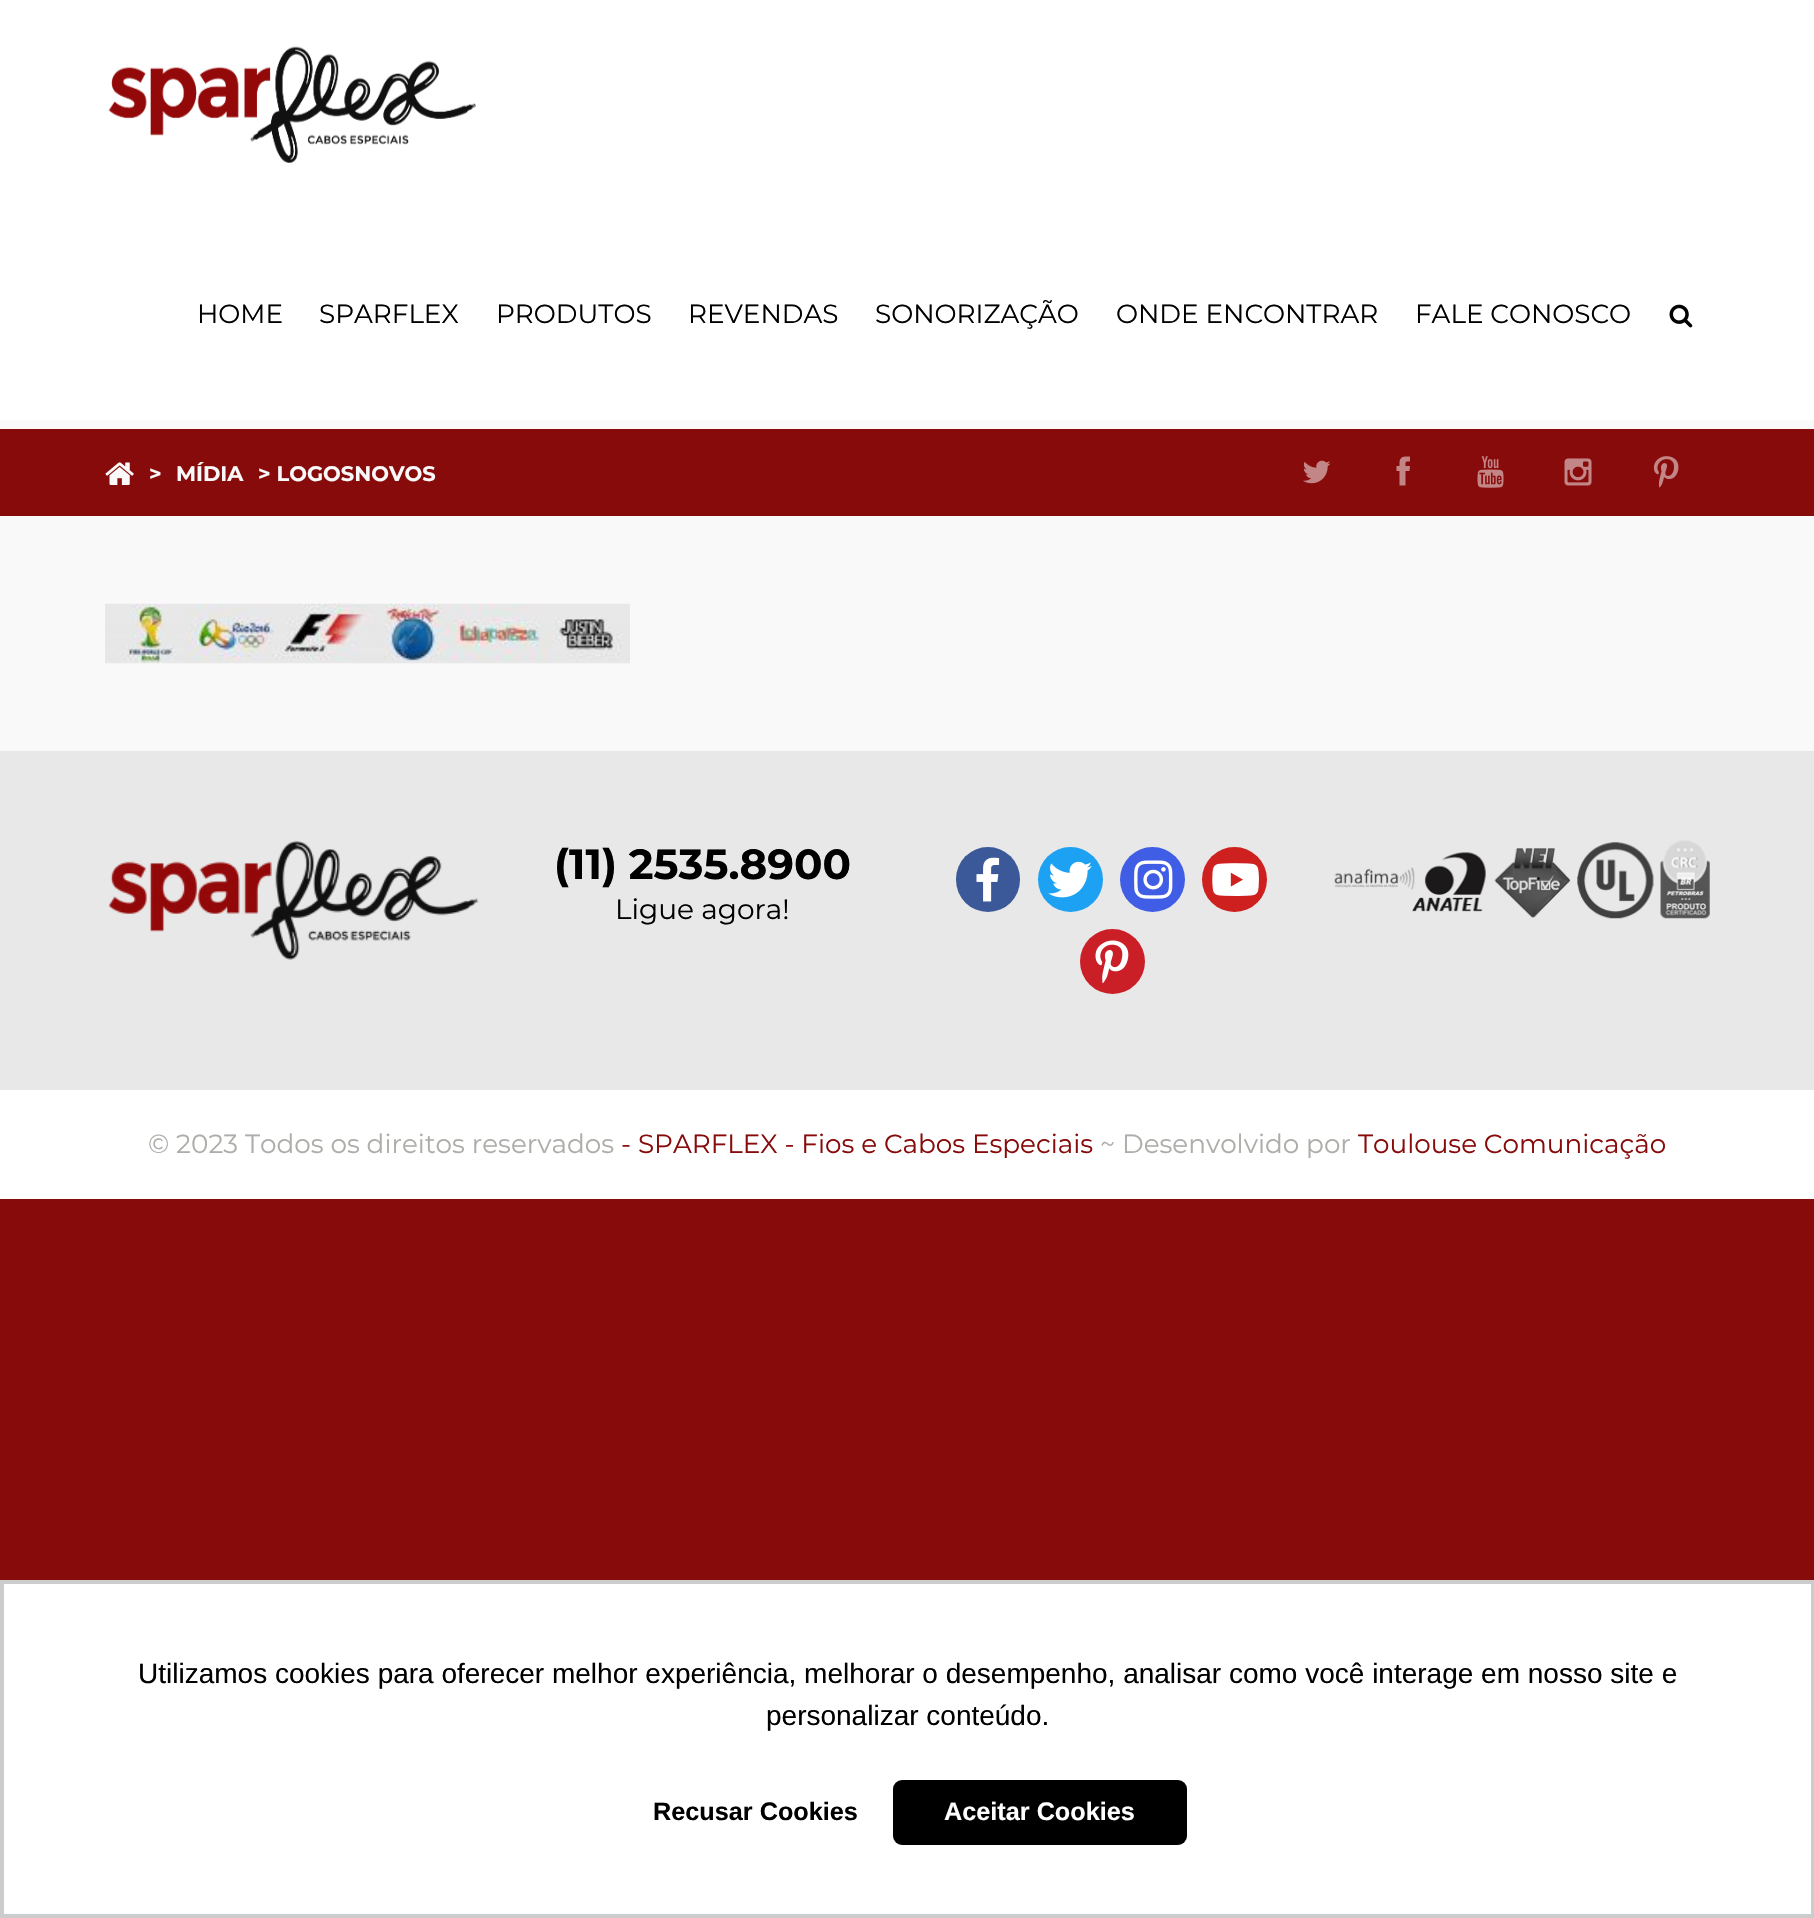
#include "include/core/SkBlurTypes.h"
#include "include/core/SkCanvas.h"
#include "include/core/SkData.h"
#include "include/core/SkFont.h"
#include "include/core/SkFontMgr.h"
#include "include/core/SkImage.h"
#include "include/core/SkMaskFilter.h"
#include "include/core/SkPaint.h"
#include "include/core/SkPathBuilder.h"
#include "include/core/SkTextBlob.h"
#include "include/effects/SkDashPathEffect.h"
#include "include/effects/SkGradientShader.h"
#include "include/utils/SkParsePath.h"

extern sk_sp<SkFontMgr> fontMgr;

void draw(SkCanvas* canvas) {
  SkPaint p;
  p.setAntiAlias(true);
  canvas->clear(SkColorSetRGB(135, 11, 11));
  p.setColor(SK_ColorWHITE);
  canvas->drawRect(SkRect::MakeLTRB(0, 0, 1814, 420), p);
  canvas->drawImageRect(SkImages::DeferredFromEncodedData(SkData::MakeFromFileName("images/1.png")), SkRect::MakeLTRB(108, 46, 476, 163), SkSamplingOptions());
  canvas->drawImageRect(SkImages::DeferredFromEncodedData(SkData::MakeFromFileName("images/2.png")), SkRect::MakeLTRB(1669, 304, 1693, 328), SkSamplingOptions());
  p.setColor(SkColorSetRGB(249, 249, 249));
  canvas->drawRect(SkRect::MakeLTRB(0, 420, 1814, 429), p);
  canvas->drawImageRect(SkImages::DeferredFromEncodedData(SkData::MakeFromFileName("images/3.png")), SkRect::MakeLTRB(105, 462, 134, 485), SkSamplingOptions());
  canvas->drawImageRect(SkImages::DeferredFromEncodedData(SkData::MakeFromFileName("images/4.png")), SkRect::MakeLTRB(1303, 460, 1331, 484), SkSamplingOptions());
  canvas->drawImageRect(SkImages::DeferredFromEncodedData(SkData::MakeFromFileName("images/5.png")), SkRect::MakeLTRB(1396, 456, 1410, 486), SkSamplingOptions());
  canvas->drawImageRect(SkImages::DeferredFromEncodedData(SkData::MakeFromFileName("images/6.png")), SkRect::MakeLTRB(1477, 456, 1504, 488), SkSamplingOptions());
  canvas->drawImageRect(SkImages::DeferredFromEncodedData(SkData::MakeFromFileName("images/7.png")), SkRect::MakeLTRB(1564, 458, 1592, 486), SkSamplingOptions());
  canvas->drawImageRect(SkImages::DeferredFromEncodedData(SkData::MakeFromFileName("images/8.png")), SkRect::MakeLTRB(1653, 456, 1679, 488), SkSamplingOptions());
  canvas->drawRect(SkRect::MakeLTRB(0, 516, 1814, 751), p);
  canvas->drawImageRect(SkImages::DeferredFromEncodedData(SkData::MakeFromFileName("images/9.png")), SkRect::MakeLTRB(105, 603, 630, 664), SkSamplingOptions());
  p.setColor(SkColorSetRGB(232, 232, 232));
  canvas->drawRect(SkRect::MakeLTRB(0, 751, 1814, 1090), p);
  canvas->drawImageRect(SkImages::DeferredFromEncodedData(SkData::MakeFromFileName("images/10.png")), SkRect::MakeLTRB(109, 840, 479, 960), SkSamplingOptions());
  p.setColor(SkColorSetRGB(59, 89, 152));
  canvas->drawRoundRect(SkRect::MakeLTRB(956, 847, 1020, 912), 32, 32, p);
  canvas->drawImageRect(SkImages::DeferredFromEncodedData(SkData::MakeFromFileName("images/11.png")), SkRect::MakeLTRB(976, 857, 1000, 902), SkSamplingOptions());
  p.setColor(SkColorSetRGB(29, 161, 242));
  canvas->drawCircle(1070.5f, 879.5f, 32.5f, p);
  canvas->drawImageRect(SkImages::DeferredFromEncodedData(SkData::MakeFromFileName("images/12.png")), SkRect::MakeLTRB(1048, 861, 1092, 898), SkSamplingOptions());
  p.setColor(SkColorSetRGB(64, 93, 230));
  canvas->drawCircle(1152.5f, 879.5f, 32.5f, p);
  canvas->drawImageRect(SkImages::DeferredFromEncodedData(SkData::MakeFromFileName("images/13.png")), SkRect::MakeLTRB(1134, 860, 1173, 899), SkSamplingOptions());
  p.setColor(SkColorSetRGB(205, 32, 31));
  canvas->drawCircle(1234.5f, 879.5f, 32.5f, p);
  canvas->drawImageRect(SkImages::DeferredFromEncodedData(SkData::MakeFromFileName("images/14.png")), SkRect::MakeLTRB(1212, 863, 1259, 896), SkSamplingOptions());
  p.setColor(SkColorSetRGB(203, 31, 39));
  canvas->drawCircle(1112.5f, 961.5f, 32.5f, p);
  canvas->drawImageRect(SkImages::DeferredFromEncodedData(SkData::MakeFromFileName("images/15.png")), SkRect::MakeLTRB(1095, 940, 1129, 984), SkSamplingOptions());
  canvas->drawImageRect(SkImages::DeferredFromEncodedData(SkData::MakeFromFileName("images/16.png")), SkRect::MakeLTRB(1334, 840, 1710, 919), SkSamplingOptions());
  p.setColor(SK_ColorWHITE);
  canvas->drawRect(SkRect::MakeLTRB(0, 1090, 1814, 1199), p);
  canvas->drawRect(SkRect::MakeLTRB(2, 1582, 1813, 1916), p);
  p.setStyle(SkPaint::kStroke_Style);
  p.setStrokeWidth(4);
  p.setColor(SkColorSetRGB(204, 204, 204));
  canvas->drawRect(SkRect::MakeLTRB(2, 1582, 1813, 1916), p);
  p.setStyle(SkPaint::kFill_Style);
  p.setColor(SK_ColorBLACK);
  canvas->drawRoundRect(SkRect::MakeLTRB(893, 1780, 1187, 1845), 9, 9, p);
  SkFont font1(fontMgr->matchFamilyStyle("Montserrat", SkFontStyle::Normal()), 26.25f);
  font1.setSubpixel(true);
  canvas->drawString("HOME", 197, 323, font1, p);
  canvas->drawString("SPARFLEX", 319, 323, font1, p);
  canvas->drawString("PRODUTOS", 496, 323, font1, p);
  canvas->drawString("REVENDAS", 688, 323, font1, p);
  canvas->drawString("SONORIZAÇÃO", 875, 323, font1, p);
  canvas->drawString("ONDE ENCONTRAR", 1116, 323, font1, p);
  canvas->drawString("FALE CONOSCO", 1415, 323, font1, p);
  SkFont font2(fontMgr->matchFamilyStyle("Montserrat", SkFontStyle::Bold()), 21);
  font2.setSubpixel(true);
  p.setColor(SkColorSetRGB(249, 249, 249));
  canvas->drawString(">", 149, 481, font2, p);
  canvas->drawString("MÍDIA", 176, 481, font2, p);
  canvas->drawString("> LOGOSNOVOS", 258, 481, font2, p);
  SkFont font3(fontMgr->matchFamilyStyle("Montserrat", SkFontStyle::Bold()), 42);
  font3.setSubpixel(true);
  p.setColor(SK_ColorBLACK);
  canvas->drawString("(11) 2535.8900", 554, 879, font3, p);
  SkFont font4(fontMgr->matchFamilyStyle("Montserrat", SkFontStyle::Normal()), 28);
  font4.setSubpixel(true);
  canvas->drawString("Ligue agora!", 615, 919, font4, p);
  p.setColor(SkColorSetRGB(172, 174, 169));
  canvas->drawString("© 2023 Todos os direitos reservados", 148, 1153, font1, p);
  p.setColor(SkColorSetRGB(135, 11, 11));
  canvas->drawString("- SPARFLEX - Fios e Cabos Especiais", 621, 1153, font1, p);
  p.setColor(SkColorSetRGB(172, 174, 169));
  canvas->drawString("~ Desenvolvido por", 1100, 1153, font1, p);
  p.setColor(SkColorSetRGB(135, 11, 11));
  canvas->drawString("Toulouse Comunicação", 1358, 1153, font1, p);
  SkFont font5(fontMgr->matchFamilyStyle("Liberation Sans", SkFontStyle::Normal()), 28);
  font5.setSubpixel(true);
  p.setColor(SK_ColorBLACK);
  canvas->drawString("Utilizamos cookies para oferecer melhor experiência, melhorar o desempenho, analisar como você interage em nosso site e", 138, 1683, font5, p);
  canvas->drawString("personalizar conteúdo.", 766, 1725, font5, p);
  SkFont font6(fontMgr->matchFamilyStyle("Liberation Sans", SkFontStyle::Bold()), 25.25f);
  font6.setSubpixel(true);
  canvas->drawString("Recusar Cookies", 653, 1820, font6, p);
  p.setColor(SK_ColorWHITE);
  canvas->drawString("Aceitar Cookies", 944, 1820, font6, p);
}
